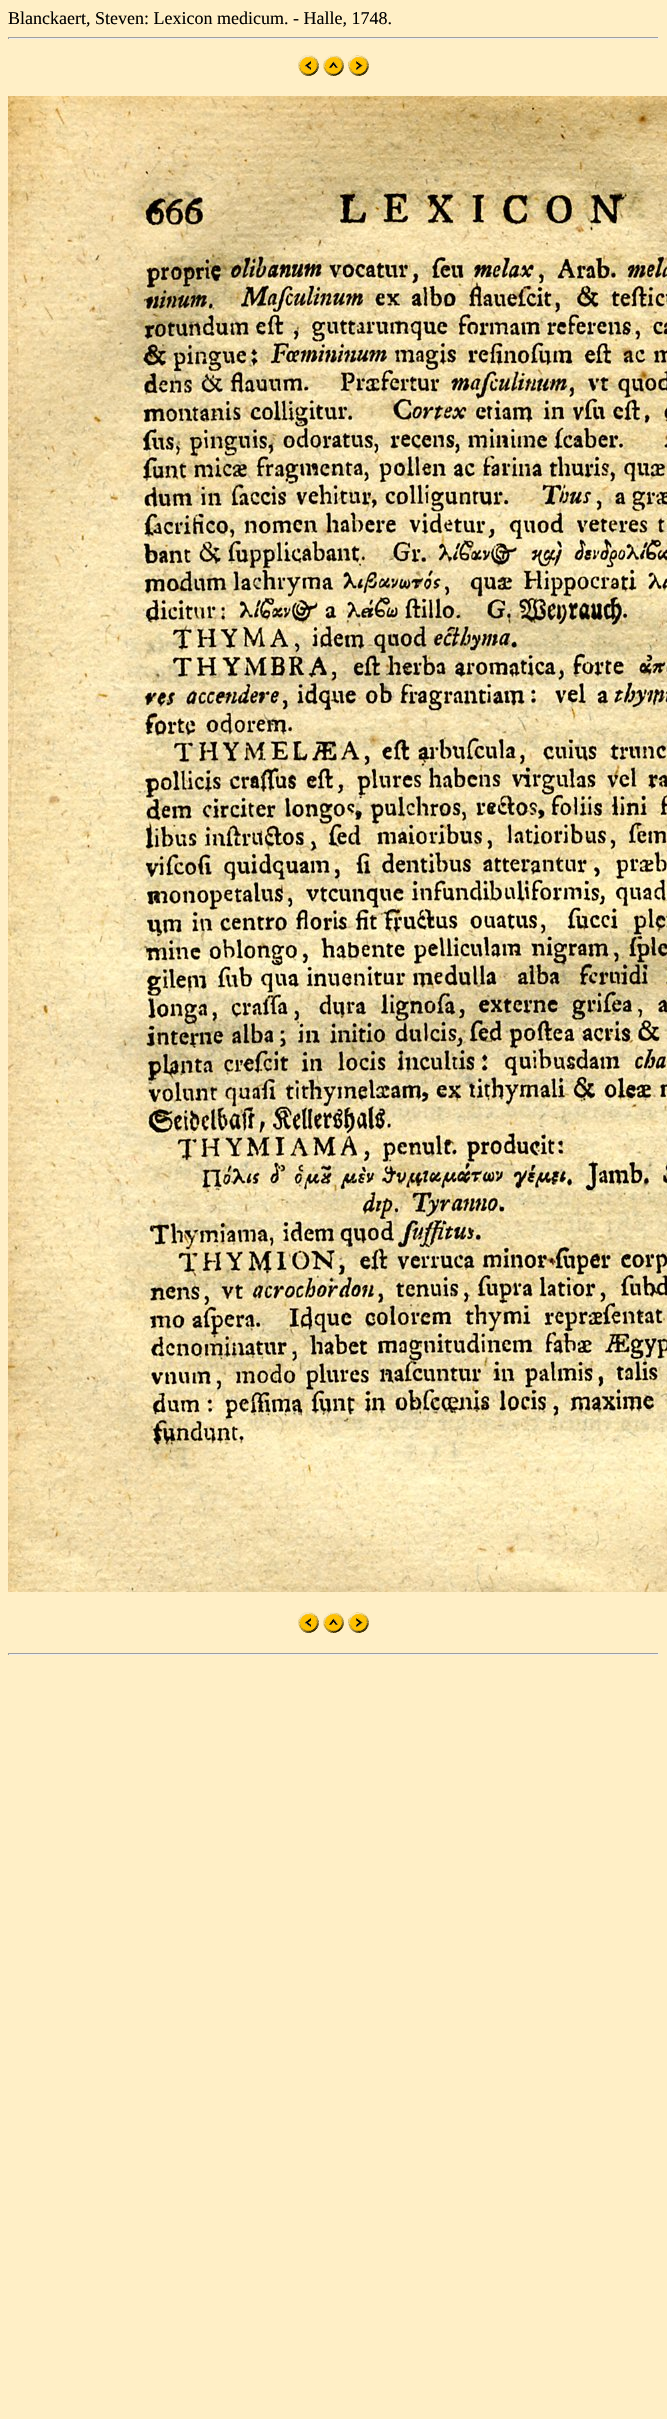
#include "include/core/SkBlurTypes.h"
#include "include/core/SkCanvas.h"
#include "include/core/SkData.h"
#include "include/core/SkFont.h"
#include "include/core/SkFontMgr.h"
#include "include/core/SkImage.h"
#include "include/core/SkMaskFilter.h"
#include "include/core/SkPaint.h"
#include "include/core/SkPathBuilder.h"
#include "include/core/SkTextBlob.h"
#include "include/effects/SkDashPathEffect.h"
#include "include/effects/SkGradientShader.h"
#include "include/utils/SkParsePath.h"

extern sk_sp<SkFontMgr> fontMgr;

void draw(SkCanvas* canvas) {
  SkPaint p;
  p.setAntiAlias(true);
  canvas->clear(SkColorSetRGB(255, 239, 198));
  p.setColor(SkColorSetRGB(159, 159, 159));
  canvas->drawRect(SkRect::MakeLTRB(8, 37, 659, 38), p);
  p.setColor(SkColorSetRGB(238, 238, 238));
  canvas->drawRect(SkRect::MakeLTRB(658, 37, 659, 39), p);
  canvas->drawRect(SkRect::MakeLTRB(8, 38, 659, 39), p);
  p.setColor(SkColorSetRGB(159, 159, 159));
  canvas->drawRect(SkRect::MakeLTRB(8, 37, 9, 39), p);
  canvas->drawImageRect(SkImages::DeferredFromEncodedData(SkData::MakeFromFileName("images/1.png")), SkRect::MakeLTRB(298, 55, 319, 76), SkSamplingOptions());
  canvas->drawImageRect(SkImages::DeferredFromEncodedData(SkData::MakeFromFileName("images/2.png")), SkRect::MakeLTRB(323, 55, 344, 76), SkSamplingOptions());
  canvas->drawImageRect(SkImages::DeferredFromEncodedData(SkData::MakeFromFileName("images/3.png")), SkRect::MakeLTRB(348, 55, 369, 76), SkSamplingOptions());
  canvas->drawImageRect(SkImages::DeferredFromEncodedData(SkData::MakeFromFileName("images/4.png")), SkRect::MakeLTRB(8, 96, 667, 1592), SkSamplingOptions());
  canvas->drawImageRect(SkImages::DeferredFromEncodedData(SkData::MakeFromFileName("images/1.png")), SkRect::MakeLTRB(298, 1612, 319, 1633), SkSamplingOptions());
  canvas->drawImageRect(SkImages::DeferredFromEncodedData(SkData::MakeFromFileName("images/2.png")), SkRect::MakeLTRB(323, 1612, 344, 1633), SkSamplingOptions());
  canvas->drawImageRect(SkImages::DeferredFromEncodedData(SkData::MakeFromFileName("images/3.png")), SkRect::MakeLTRB(348, 1612, 369, 1633), SkSamplingOptions());
  canvas->drawRect(SkRect::MakeLTRB(8, 1653, 659, 1654), p);
  p.setColor(SkColorSetRGB(238, 238, 238));
  canvas->drawRect(SkRect::MakeLTRB(658, 1653, 659, 1655), p);
  canvas->drawRect(SkRect::MakeLTRB(8, 1654, 659, 1655), p);
  p.setColor(SkColorSetRGB(159, 159, 159));
  canvas->drawRect(SkRect::MakeLTRB(8, 1653, 9, 1655), p);
  SkFont font1(fontMgr->matchFamilyStyle("Liberation Serif", SkFontStyle::Normal()), 18);
  font1.setSubpixel(true);
  p.setColor(SK_ColorBLACK);
  canvas->drawString("Blanckaert, Steven: Lexicon medicum. - Halle, 1748.", 8, 24, font1, p);
}
